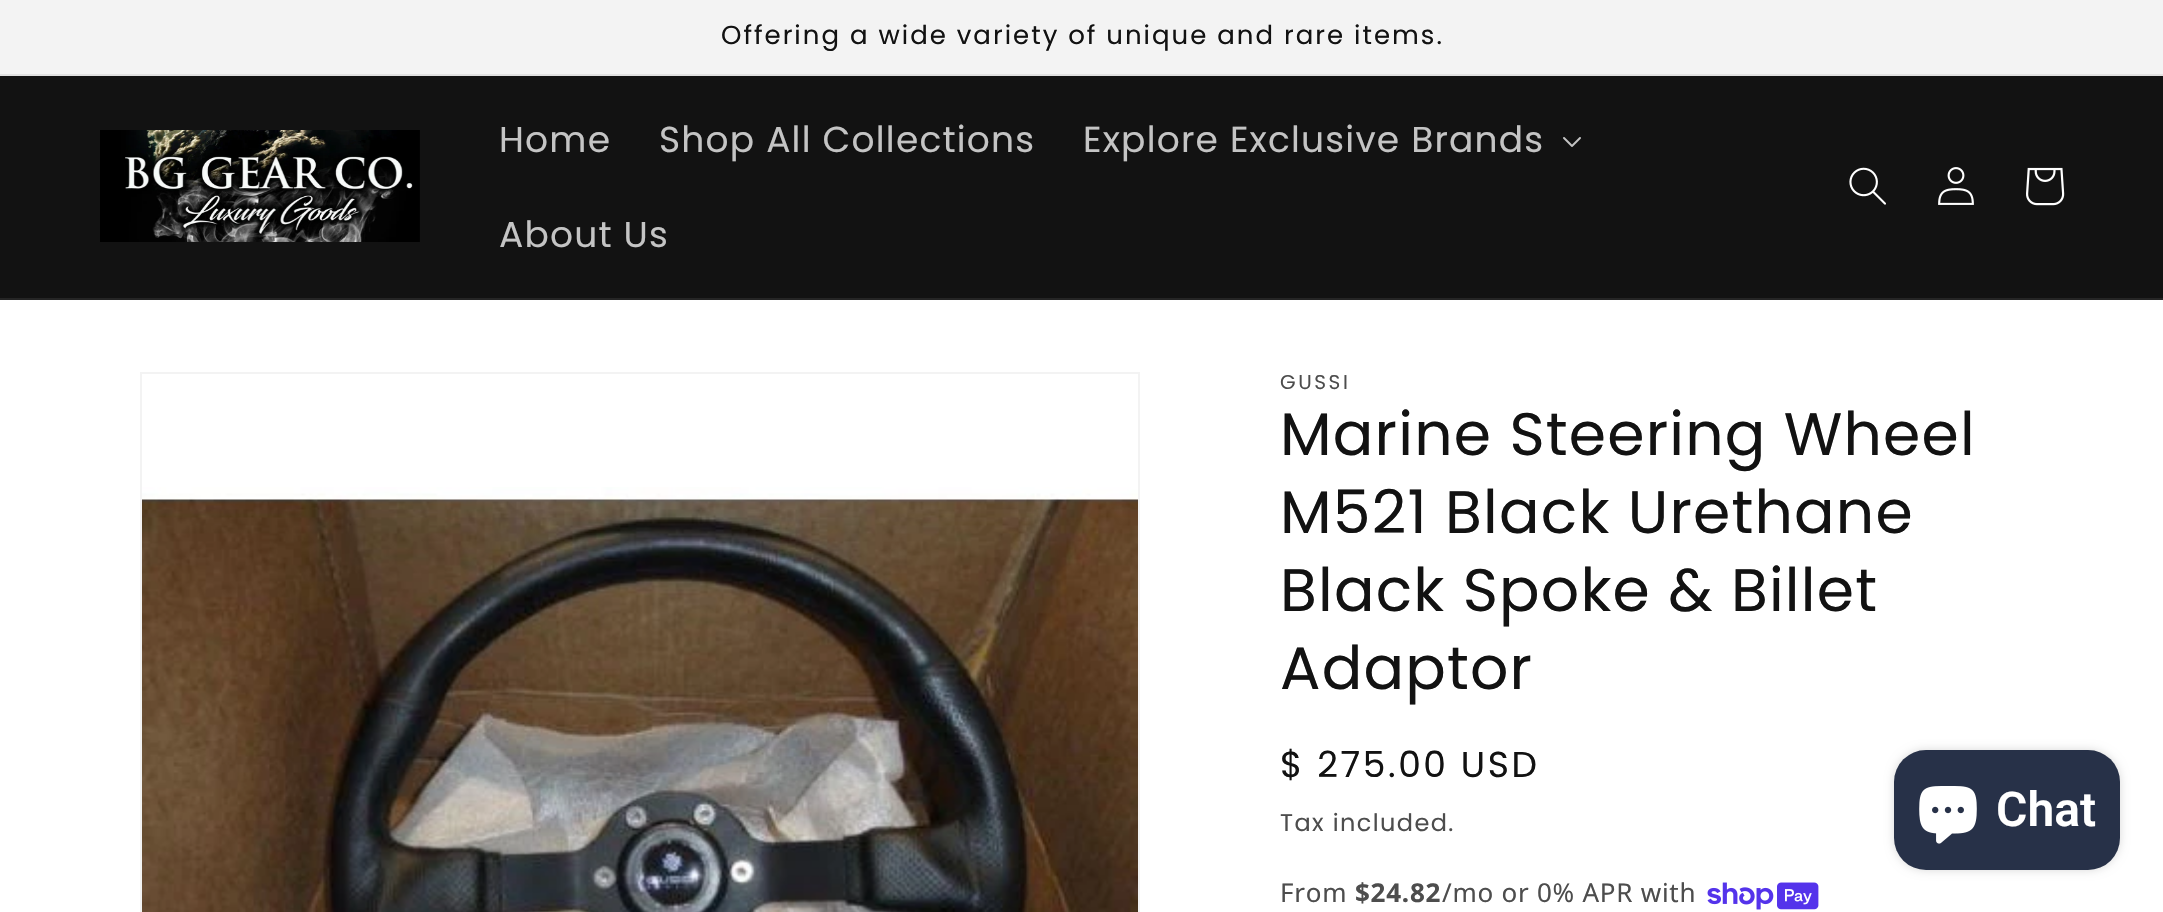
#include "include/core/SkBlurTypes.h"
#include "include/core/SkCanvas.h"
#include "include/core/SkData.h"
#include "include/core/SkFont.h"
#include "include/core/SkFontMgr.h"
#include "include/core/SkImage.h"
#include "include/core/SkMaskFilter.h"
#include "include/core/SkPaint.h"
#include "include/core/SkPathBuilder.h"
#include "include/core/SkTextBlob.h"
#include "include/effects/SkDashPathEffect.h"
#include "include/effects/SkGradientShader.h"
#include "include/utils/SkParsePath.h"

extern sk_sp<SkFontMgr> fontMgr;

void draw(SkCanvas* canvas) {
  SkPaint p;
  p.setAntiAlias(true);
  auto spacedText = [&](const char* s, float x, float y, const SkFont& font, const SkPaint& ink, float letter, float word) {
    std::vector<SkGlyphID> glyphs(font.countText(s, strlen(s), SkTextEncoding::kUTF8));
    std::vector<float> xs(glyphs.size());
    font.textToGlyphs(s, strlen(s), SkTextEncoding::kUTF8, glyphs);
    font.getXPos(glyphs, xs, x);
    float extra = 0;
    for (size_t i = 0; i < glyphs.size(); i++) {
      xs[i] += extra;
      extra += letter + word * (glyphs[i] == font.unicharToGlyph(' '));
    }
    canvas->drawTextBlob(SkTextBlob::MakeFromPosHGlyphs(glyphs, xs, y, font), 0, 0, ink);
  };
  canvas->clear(SK_ColorWHITE);
  p.setColor(SkColorSetRGB(243, 243, 243));
  canvas->drawRect(SkRect::MakeLTRB(0, 0, 2163, 74), p);
  p.setColor(SkColorSetRGB(225, 225, 225));
  canvas->drawRect(SkRect::MakeLTRB(0, 74, 2163, 76), p);
  p.setColor(SkColorSetRGB(18, 18, 18));
  canvas->drawRect(SkRect::MakeLTRB(0, 76, 2163, 298), p);
  p.setColor(SkColorSetRGB(37, 37, 37));
  canvas->drawRect(SkRect::MakeLTRB(0, 298, 2163, 300), p);
  canvas->drawImageRect(SkImages::DeferredFromEncodedData(SkData::MakeFromFileName("images/1.png")), SkRect::MakeLTRB(100, 130, 420, 242), SkSamplingOptions());
  canvas->drawImageRect(SkImages::DeferredFromEncodedData(SkData::MakeFromFileName("images/2.png")), SkRect::MakeLTRB(1563, 137, 1581, 147), SkSamplingOptions());
  canvas->drawImageRect(SkImages::DeferredFromEncodedData(SkData::MakeFromFileName("images/3.png")), SkRect::MakeLTRB(1849, 167, 1886, 205), SkSamplingOptions());
  canvas->drawImageRect(SkImages::DeferredFromEncodedData(SkData::MakeFromFileName("images/4.png")), SkRect::MakeLTRB(1938, 167, 1974, 205), SkSamplingOptions());
  canvas->drawImageRect(SkImages::DeferredFromEncodedData(SkData::MakeFromFileName("images/5.png")), SkRect::MakeLTRB(2026, 167, 2065, 206), SkSamplingOptions());
  p.setStyle(SkPaint::kStroke_Style);
  p.setStrokeWidth(2);
  p.setColor(SkColorSetRGB(243, 243, 243));
  canvas->drawRect(SkRect::MakeLTRB(141, 373, 1139, 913), p);
  canvas->drawImageRect(SkImages::DeferredFromEncodedData(SkData::MakeFromFileName("images/6.png")), SkRect::MakeLTRB(142, 487, 1138, 912), SkSamplingOptions());
  canvas->drawImageRect(SkImages::DeferredFromEncodedData(SkData::MakeFromFileName("images/7.png")), SkRect::MakeLTRB(1707, 882, 1819, 910), SkSamplingOptions());
  p.setStyle(SkPaint::kFill_Style);
  p.setColor(SkColorSetARGB(38, 0, 0, 0));
  p.setMaskFilter(SkMaskFilter::MakeBlur(kNormal_SkBlurStyle, 5));
  canvas->drawRoundRect(SkRect::MakeLTRB(1894, 750, 2120, 870), 32, 32, p);
  p.setMaskFilter(nullptr);
  p.setColor(SkColorSetRGB(39, 49, 72));
  canvas->drawRoundRect(SkRect::MakeLTRB(1894, 750, 2120, 870), 32, 32, p);
  canvas->drawImageRect(SkImages::DeferredFromEncodedData(SkData::MakeFromFileName("images/8.png")), SkRect::MakeLTRB(1919, 786, 1977, 844), SkSamplingOptions());
  SkFont font1(fontMgr->matchFamilyStyle("Poppins", SkFontStyle::Normal()), 26);
  font1.setSubpixel(true);
  p.setColor(SkColorSetRGB(18, 18, 18));
  spacedText("Offering a wide variety of unique and rare items.", 721, 44, font1, p, 2, 0);
  SkFont font2(fontMgr->matchFamilyStyle("Poppins", SkFontStyle::Normal()), 36);
  font2.setSubpixel(true);
  p.setColor(SkColorSetRGB(196, 196, 196));
  spacedText("Home", 499, 152, font2, p, 1.2f, 0);
  spacedText("Shop All Collections", 659, 152, font2, p, 1.2f, 0);
  spacedText("Explore Exclusive Brands", 1083, 152, font2, p, 1.2f, 0);
  spacedText("About Us", 499, 247, font2, p, 1.2f, 0);
  SkFont font3(fontMgr->matchFamilyStyle("Poppins", SkFontStyle::Normal()), 20);
  font3.setSubpixel(true);
  p.setColor(SkColorSetRGB(77, 77, 77));
  spacedText("GUSSI", 1280, 389, font3, p, 2.6f, 0);
  SkFont font4(fontMgr->matchFamilyStyle("Poppins", SkFontStyle::Normal()), 60);
  font4.setSubpixel(true);
  p.setColor(SkColorSetRGB(18, 18, 18));
  spacedText("Marine Steering Wheel", 1280, 455, font4, p, 1.2f, 0);
  spacedText("M521 Black Urethane", 1280, 533, font4, p, 1.2f, 0);
  spacedText("Black Spoke & Billet", 1280, 611, font4, p, 1.2f, 0);
  spacedText("Adaptor", 1280, 689, font4, p, 1.2f, 0);
  spacedText("$ 275.00 USD", 1280, 777, font2, p, 2.6f, 0);
  SkFont font5(fontMgr->matchFamilyStyle("Poppins", SkFontStyle::Normal()), 24);
  font5.setSubpixel(true);
  p.setColor(SkColorSetRGB(77, 77, 77));
  spacedText("Tax included.", 1280, 831, font5, p, 1.4f, 0);
  SkFont font6(fontMgr->matchFamilyStyle("Noto Sans", SkFontStyle::Normal()), 26);
  font6.setSubpixel(true);
  spacedText("From", 1280, 902, font6, p, 0.75f, 0);
  SkFont font7(fontMgr->matchFamilyStyle("Noto Sans", SkFontStyle::Bold()), 26);
  font7.setSubpixel(true);
  spacedText("$24.82", 1355, 902, font7, p, 0.75f, 0);
  spacedText("/mo or 0% APR with", 1442, 902, font6, p, 0.75f, 0);
  SkFont font8(fontMgr->matchFamilyStyle("Roboto", SkFontStyle(600, SkFontStyle::kNormal_Width, SkFontStyle::kUpright_Slant)), 48);
  font8.setSubpixel(true);
  p.setColor(SK_ColorWHITE);
  canvas->drawString("Chat", 1996, 826, font8, p);
}
